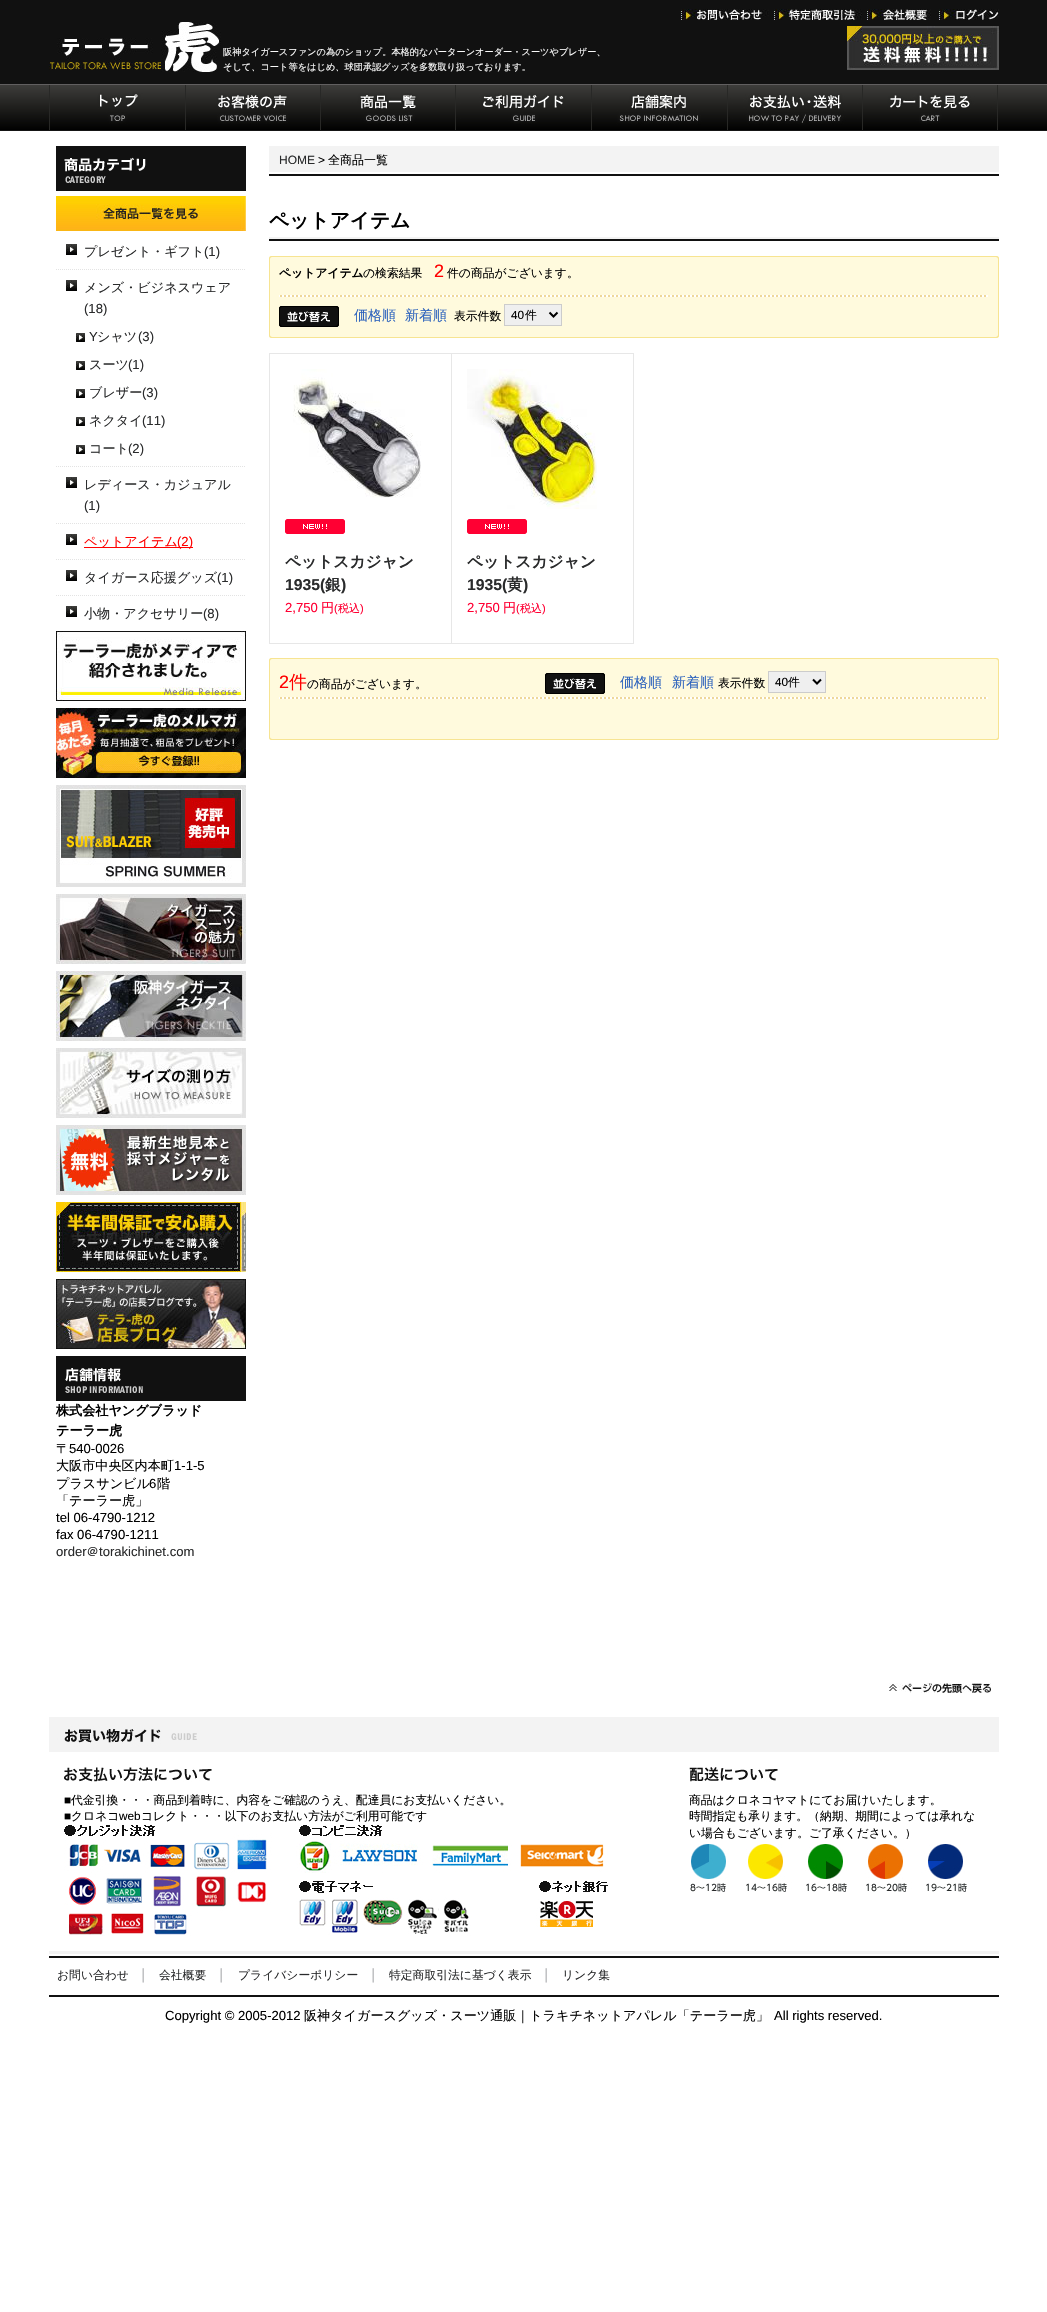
#include "include/core/SkBlurTypes.h"
#include "include/core/SkCanvas.h"
#include "include/core/SkData.h"
#include "include/core/SkFont.h"
#include "include/core/SkFontMgr.h"
#include "include/core/SkImage.h"
#include "include/core/SkMaskFilter.h"
#include "include/core/SkPaint.h"
#include "include/core/SkPathBuilder.h"
#include "include/core/SkTextBlob.h"
#include "include/effects/SkDashPathEffect.h"
#include "include/effects/SkGradientShader.h"
#include "include/utils/SkParsePath.h"

extern sk_sp<SkFontMgr> fontMgr;

void draw(SkCanvas* canvas) {
  SkPaint p;
  p.setAntiAlias(true);
  canvas->clear(SK_ColorWHITE);
  canvas->drawImageRect(SkImages::DeferredFromEncodedData(SkData::MakeFromFileName("images/1.png")), SkRect::MakeLTRB(0, 0, 1047, 131), SkSamplingOptions());
  canvas->drawImageRect(SkImages::DeferredFromEncodedData(SkData::MakeFromFileName("images/2.png")), SkRect::MakeLTRB(49, 22, 221, 72), SkSamplingOptions());
  canvas->drawImageRect(SkImages::DeferredFromEncodedData(SkData::MakeFromFileName("images/3.png")), SkRect::MakeLTRB(681, 9, 774, 20), SkSamplingOptions());
  canvas->drawImageRect(SkImages::DeferredFromEncodedData(SkData::MakeFromFileName("images/4.png")), SkRect::MakeLTRB(774, 9, 867, 20), SkSamplingOptions());
  canvas->drawImageRect(SkImages::DeferredFromEncodedData(SkData::MakeFromFileName("images/5.png")), SkRect::MakeLTRB(867, 9, 939, 20), SkSamplingOptions());
  canvas->drawImageRect(SkImages::DeferredFromEncodedData(SkData::MakeFromFileName("images/6.png")), SkRect::MakeLTRB(939, 9, 999, 20), SkSamplingOptions());
  canvas->drawImageRect(SkImages::DeferredFromEncodedData(SkData::MakeFromFileName("images/7.png")), SkRect::MakeLTRB(847, 26, 999, 70), SkSamplingOptions());
  canvas->drawImageRect(SkImages::DeferredFromEncodedData(SkData::MakeFromFileName("images/8.png")), SkRect::MakeLTRB(49, 85, 50, 130), SkSamplingOptions());
  canvas->drawImageRect(SkImages::DeferredFromEncodedData(SkData::MakeFromFileName("images/9.png")), SkRect::MakeLTRB(50, 85, 185, 130), SkSamplingOptions());
  canvas->drawImageRect(SkImages::DeferredFromEncodedData(SkData::MakeFromFileName("images/8.png")), SkRect::MakeLTRB(185, 85, 186, 130), SkSamplingOptions());
  canvas->drawImageRect(SkImages::DeferredFromEncodedData(SkData::MakeFromFileName("images/10.png")), SkRect::MakeLTRB(186, 85, 320, 130), SkSamplingOptions());
  canvas->drawImageRect(SkImages::DeferredFromEncodedData(SkData::MakeFromFileName("images/11.png")), SkRect::MakeLTRB(320, 85, 321, 130), SkSamplingOptions());
  canvas->drawImageRect(SkImages::DeferredFromEncodedData(SkData::MakeFromFileName("images/12.png")), SkRect::MakeLTRB(321, 85, 455, 130), SkSamplingOptions());
  canvas->drawImageRect(SkImages::DeferredFromEncodedData(SkData::MakeFromFileName("images/13.png")), SkRect::MakeLTRB(455, 85, 456, 130), SkSamplingOptions());
  canvas->drawImageRect(SkImages::DeferredFromEncodedData(SkData::MakeFromFileName("images/14.png")), SkRect::MakeLTRB(456, 85, 591, 130), SkSamplingOptions());
  canvas->drawImageRect(SkImages::DeferredFromEncodedData(SkData::MakeFromFileName("images/11.png")), SkRect::MakeLTRB(591, 85, 592, 130), SkSamplingOptions());
  canvas->drawImageRect(SkImages::DeferredFromEncodedData(SkData::MakeFromFileName("images/15.png")), SkRect::MakeLTRB(592, 85, 727, 130), SkSamplingOptions());
  canvas->drawImageRect(SkImages::DeferredFromEncodedData(SkData::MakeFromFileName("images/16.png")), SkRect::MakeLTRB(727, 85, 863, 130), SkSamplingOptions());
  canvas->drawImageRect(SkImages::DeferredFromEncodedData(SkData::MakeFromFileName("images/17.png")), SkRect::MakeLTRB(728, 85, 862, 130), SkSamplingOptions());
  canvas->drawImageRect(SkImages::DeferredFromEncodedData(SkData::MakeFromFileName("images/18.png")), SkRect::MakeLTRB(997, 85, 998, 130), SkSamplingOptions());
  canvas->drawImageRect(SkImages::DeferredFromEncodedData(SkData::MakeFromFileName("images/19.png")), SkRect::MakeLTRB(863, 85, 997, 130), SkSamplingOptions());
  canvas->drawImageRect(SkImages::DeferredFromEncodedData(SkData::MakeFromFileName("images/20.png")), SkRect::MakeLTRB(56, 146, 246, 191), SkSamplingOptions());
  canvas->drawImageRect(SkImages::DeferredFromEncodedData(SkData::MakeFromFileName("images/21.png")), SkRect::MakeLTRB(56, 196, 246, 231), SkSamplingOptions());
  p.setStyle(SkPaint::kStroke_Style);
  p.setStrokeWidth(1);
  p.setColor(SkColorSetRGB(227, 227, 227));
  p.setPathEffect(SkDashPathEffect::Make({{1, 1}}, 0));
  canvas->drawPath(SkPathBuilder().moveTo(56, 269.5f).lineTo(246, 269.5f).detach(), p);
  p.setPathEffect(nullptr);
  canvas->drawImageRect(SkImages::DeferredFromEncodedData(SkData::MakeFromFileName("images/22.png")), SkRect::MakeLTRB(66, 244, 77, 255), SkSamplingOptions());
  p.setPathEffect(SkDashPathEffect::Make({{1, 1}}, 0));
  canvas->drawPath(SkPathBuilder().moveTo(56, 466.5f).lineTo(246, 466.5f).detach(), p);
  p.setPathEffect(nullptr);
  canvas->drawImageRect(SkImages::DeferredFromEncodedData(SkData::MakeFromFileName("images/22.png")), SkRect::MakeLTRB(66, 280, 77, 291), SkSamplingOptions());
  canvas->drawImageRect(SkImages::DeferredFromEncodedData(SkData::MakeFromFileName("images/23.png")), SkRect::MakeLTRB(76, 333, 85, 342), SkSamplingOptions());
  canvas->drawImageRect(SkImages::DeferredFromEncodedData(SkData::MakeFromFileName("images/23.png")), SkRect::MakeLTRB(76, 361, 85, 370), SkSamplingOptions());
  canvas->drawImageRect(SkImages::DeferredFromEncodedData(SkData::MakeFromFileName("images/23.png")), SkRect::MakeLTRB(76, 389, 85, 398), SkSamplingOptions());
  canvas->drawImageRect(SkImages::DeferredFromEncodedData(SkData::MakeFromFileName("images/23.png")), SkRect::MakeLTRB(76, 417, 85, 426), SkSamplingOptions());
  canvas->drawImageRect(SkImages::DeferredFromEncodedData(SkData::MakeFromFileName("images/23.png")), SkRect::MakeLTRB(76, 445, 85, 454), SkSamplingOptions());
  p.setPathEffect(SkDashPathEffect::Make({{1, 1}}, 0));
  canvas->drawPath(SkPathBuilder().moveTo(56, 523.5f).lineTo(246, 523.5f).detach(), p);
  p.setPathEffect(nullptr);
  canvas->drawImageRect(SkImages::DeferredFromEncodedData(SkData::MakeFromFileName("images/22.png")), SkRect::MakeLTRB(66, 477, 77, 488), SkSamplingOptions());
  p.setPathEffect(SkDashPathEffect::Make({{1, 1}}, 0));
  canvas->drawPath(SkPathBuilder().moveTo(56, 559.5f).lineTo(246, 559.5f).detach(), p);
  p.setPathEffect(nullptr);
  canvas->drawImageRect(SkImages::DeferredFromEncodedData(SkData::MakeFromFileName("images/22.png")), SkRect::MakeLTRB(66, 534, 77, 545), SkSamplingOptions());
  p.setStyle(SkPaint::kFill_Style);
  p.setColor(SkColorSetRGB(255, 0, 0));
  canvas->drawRect(SkRect::MakeLTRB(84, 547, 193, 548), p);
  p.setStyle(SkPaint::kStroke_Style);
  p.setColor(SkColorSetRGB(227, 227, 227));
  p.setPathEffect(SkDashPathEffect::Make({{1, 1}}, 0));
  canvas->drawPath(SkPathBuilder().moveTo(56, 595.5f).lineTo(246, 595.5f).detach(), p);
  p.setPathEffect(nullptr);
  canvas->drawImageRect(SkImages::DeferredFromEncodedData(SkData::MakeFromFileName("images/22.png")), SkRect::MakeLTRB(66, 570, 77, 581), SkSamplingOptions());
  canvas->drawImageRect(SkImages::DeferredFromEncodedData(SkData::MakeFromFileName("images/22.png")), SkRect::MakeLTRB(66, 606, 77, 617), SkSamplingOptions());
  canvas->drawImageRect(SkImages::DeferredFromEncodedData(SkData::MakeFromFileName("images/24.png")), SkRect::MakeLTRB(56, 631, 246, 701), SkSamplingOptions());
  canvas->drawImageRect(SkImages::DeferredFromEncodedData(SkData::MakeFromFileName("images/25.png")), SkRect::MakeLTRB(56, 708, 246, 778), SkSamplingOptions());
  canvas->drawImageRect(SkImages::DeferredFromEncodedData(SkData::MakeFromFileName("images/26.png")), SkRect::MakeLTRB(56, 785, 246, 887), SkSamplingOptions());
  canvas->drawImageRect(SkImages::DeferredFromEncodedData(SkData::MakeFromFileName("images/27.png")), SkRect::MakeLTRB(56, 894, 246, 964), SkSamplingOptions());
  canvas->drawImageRect(SkImages::DeferredFromEncodedData(SkData::MakeFromFileName("images/28.png")), SkRect::MakeLTRB(56, 971, 246, 1041), SkSamplingOptions());
  canvas->drawImageRect(SkImages::DeferredFromEncodedData(SkData::MakeFromFileName("images/29.png")), SkRect::MakeLTRB(56, 1048, 246, 1118), SkSamplingOptions());
  canvas->drawImageRect(SkImages::DeferredFromEncodedData(SkData::MakeFromFileName("images/30.png")), SkRect::MakeLTRB(56, 1125, 246, 1195), SkSamplingOptions());
  canvas->drawImageRect(SkImages::DeferredFromEncodedData(SkData::MakeFromFileName("images/31.png")), SkRect::MakeLTRB(56, 1202, 246, 1272), SkSamplingOptions());
  canvas->drawImageRect(SkImages::DeferredFromEncodedData(SkData::MakeFromFileName("images/32.png")), SkRect::MakeLTRB(56, 1279, 246, 1349), SkSamplingOptions());
  canvas->drawImageRect(SkImages::DeferredFromEncodedData(SkData::MakeFromFileName("images/33.png")), SkRect::MakeLTRB(56, 1356, 246, 1401), SkSamplingOptions());
  canvas->drawImageRect(SkImages::DeferredFromEncodedData(SkData::MakeFromFileName("images/34.png")), SkRect::MakeLTRB(269, 146, 999, 176), SkSamplingOptions());
  canvas->drawImageRect(SkImages::DeferredFromEncodedData(SkData::MakeFromFileName("images/35.png")), SkRect::MakeLTRB(269, 237, 999, 241), SkSamplingOptions());
  canvas->drawImageRect(SkImages::DeferredFromEncodedData(SkData::MakeFromFileName("images/36.png")), SkRect::MakeLTRB(269, 256, 999, 338), SkSamplingOptions());
  canvas->drawImageRect(SkImages::DeferredFromEncodedData(SkData::MakeFromFileName("images/37.png")), SkRect::MakeLTRB(279, 306, 339, 327), SkSamplingOptions());
  p.setStyle(SkPaint::kFill_Style);
  p.setColor(SkColorSetRGB(239, 239, 239));
  canvas->drawRect(SkRect::MakeLTRB(504.5f, 304.5f, 561.5f, 325.5f), p);
  p.setStyle(SkPaint::kStroke_Style);
  p.setColor(SkColorSetRGB(204, 204, 204));
  canvas->drawRect(SkRect::MakeLTRB(504.5f, 304.5f, 561.5f, 325.5f), p);
  p.setStrokeWidth(2);
  p.setColor(SK_ColorBLACK);
  canvas->drawPath(SkPathBuilder().moveTo(549.5f, 312.5f).lineTo(553.5f, 316.5f).lineTo(557.5f, 312.5f).detach(), p);
  p.setStrokeWidth(1);
  p.setColor(SkColorSetRGB(231, 231, 231));
  canvas->drawRect(SkRect::MakeLTRB(269.5f, 353.5f, 451.5f, 643.5f), p);
  canvas->drawImageRect(SkImages::DeferredFromEncodedData(SkData::MakeFromFileName("images/38.png")), SkRect::MakeLTRB(293, 369, 421, 498), SkSamplingOptions());
  canvas->drawImageRect(SkImages::DeferredFromEncodedData(SkData::MakeFromFileName("images/39.png")), SkRect::MakeLTRB(285, 519, 345, 534), SkSamplingOptions());
  canvas->drawRect(SkRect::MakeLTRB(451.5f, 353.5f, 633.5f, 643.5f), p);
  canvas->drawImageRect(SkImages::DeferredFromEncodedData(SkData::MakeFromFileName("images/40.png")), SkRect::MakeLTRB(467, 369, 597, 509), SkSamplingOptions());
  canvas->drawImageRect(SkImages::DeferredFromEncodedData(SkData::MakeFromFileName("images/39.png")), SkRect::MakeLTRB(467, 519, 527, 534), SkSamplingOptions());
  canvas->drawImageRect(SkImages::DeferredFromEncodedData(SkData::MakeFromFileName("images/36.png")), SkRect::MakeLTRB(269, 658, 999, 740), SkSamplingOptions());
  canvas->drawImageRect(SkImages::DeferredFromEncodedData(SkData::MakeFromFileName("images/37.png")), SkRect::MakeLTRB(545, 673, 605, 694), SkSamplingOptions());
  p.setStyle(SkPaint::kFill_Style);
  p.setColor(SkColorSetRGB(239, 239, 239));
  canvas->drawRect(SkRect::MakeLTRB(768.5f, 671.5f, 825.5f, 692.5f), p);
  p.setStyle(SkPaint::kStroke_Style);
  p.setColor(SkColorSetRGB(204, 204, 204));
  canvas->drawRect(SkRect::MakeLTRB(768.5f, 671.5f, 825.5f, 692.5f), p);
  p.setStrokeWidth(2);
  p.setColor(SK_ColorBLACK);
  canvas->drawPath(SkPathBuilder().moveTo(813, 679.5f).lineTo(817, 683.5f).lineTo(821, 679.5f).detach(), p);
  canvas->drawImageRect(SkImages::DeferredFromEncodedData(SkData::MakeFromFileName("images/41.png")), SkRect::MakeLTRB(889, 1683, 991, 1693), SkSamplingOptions());
  canvas->drawImageRect(SkImages::DeferredFromEncodedData(SkData::MakeFromFileName("images/42.png")), SkRect::MakeLTRB(49, 1717, 999, 1752), SkSamplingOptions());
  canvas->drawImageRect(SkImages::DeferredFromEncodedData(SkData::MakeFromFileName("images/43.png")), SkRect::MakeLTRB(64, 1767, 212, 1782), SkSamplingOptions());
  canvas->drawImageRect(SkImages::DeferredFromEncodedData(SkData::MakeFromFileName("images/44.png")), SkRect::MakeLTRB(64, 1825, 608, 1936), SkSamplingOptions());
  canvas->drawImageRect(SkImages::DeferredFromEncodedData(SkData::MakeFromFileName("images/45.png")), SkRect::MakeLTRB(689, 1767, 778, 1782), SkSamplingOptions());
  canvas->drawImageRect(SkImages::DeferredFromEncodedData(SkData::MakeFromFileName("images/46.png")), SkRect::MakeLTRB(690, 1844, 967, 1892), SkSamplingOptions());
  canvas->drawImageRect(SkImages::DeferredFromEncodedData(SkData::MakeFromFileName("images/47.png")), SkRect::MakeLTRB(49, 1951, 999, 1958), SkSamplingOptions());
  p.setStyle(SkPaint::kFill_Style);
  p.setColor(SkColorSetRGB(17, 17, 17));
  canvas->drawRect(SkRect::MakeLTRB(49, 1995, 999, 1997), p);
  SkFont font1(fontMgr->matchFamilyStyle("WenQuanYi Zen Hei", SkFontStyle(500, SkFontStyle::kNormal_Width, SkFontStyle::kUpright_Slant)), 9.2f);
  font1.setSubpixel(true);
  p.setColor(SK_ColorWHITE);
  canvas->drawString("阪神タイガースファンの為のショップ。本格的なパーターンオーダー・スーツやブレザー、", 223, 55, font1, p);
  canvas->drawString("そして、コート等をはじめ、球団承認グッズを多数取り扱っております。", 223, 70, font1, p);
  SkFont font2(fontMgr->matchFamilyStyle("WenQuanYi Zen Hei", SkFontStyle(500, SkFontStyle::kNormal_Width, SkFontStyle::kUpright_Slant)), 13.1f);
  font2.setSubpixel(true);
  p.setColor(SkColorSetRGB(42, 43, 44));
  canvas->drawString("プレゼント・ギフト", 84, 256, font2, p);
  SkFont font3(fontMgr->matchFamilyStyle("Liberation Sans", SkFontStyle::Normal()), 13.1f);
  font3.setSubpixel(true);
  canvas->drawString("(1)", 204, 256, font3, p);
  canvas->drawString("メンズ・ビジネスウェア", 84, 292, font2, p);
  canvas->drawString("(18)", 84, 313, font3, p);
  canvas->drawString("Y", 89, 341, font3, p);
  canvas->drawString("シャツ", 97, 341, font2, p);
  canvas->drawString("(3)", 138, 341, font3, p);
  canvas->drawString("スーツ", 89, 369, font2, p);
  canvas->drawString("(1)", 128, 369, font3, p);
  canvas->drawString("ブレザー", 89, 397, font2, p);
  canvas->drawString("(3)", 142, 397, font3, p);
  canvas->drawString("ネクタイ", 89, 425, font2, p);
  canvas->drawString("(11)", 142, 425, font3, p);
  canvas->drawString("コート", 89, 453, font2, p);
  canvas->drawString("(2)", 128, 453, font3, p);
  canvas->drawString("レディース・カジュアル", 84, 489, font2, p);
  canvas->drawString("(1)", 84, 510, font3, p);
  p.setColor(SkColorSetRGB(255, 0, 0));
  canvas->drawString("ペットアイテム", 84, 546, font2, p);
  canvas->drawString("(2)", 177, 546, font3, p);
  p.setColor(SkColorSetRGB(42, 43, 44));
  canvas->drawString("タイガース応援グッズ", 84, 582, font2, p);
  canvas->drawString("(1)", 217, 582, font3, p);
  canvas->drawString("小物・アクセサリー", 84, 618, font2, p);
  canvas->drawString("(8)", 203, 618, font3, p);
  SkFont font4(fontMgr->matchFamilyStyle("WenQuanYi Zen Hei", SkFontStyle::Bold()), 13.1f);
  font4.setSubpixel(true);
  p.setColor(SK_ColorBLACK);
  canvas->drawString("株式会社ヤングブラッド", 56, 1415, font4, p);
  canvas->drawString("テーラー虎", 56, 1435, font4, p);
  canvas->drawString("〒", 56, 1453, font2, p);
  canvas->drawString("540-0026", 69, 1453, font3, p);
  canvas->drawString("大阪市中央区内本町", 56, 1470, font2, p);
  canvas->drawString("1-1-5", 174, 1470, font3, p);
  canvas->drawString("プラスサンビル", 56, 1488, font2, p);
  canvas->drawString("6", 149, 1488, font3, p);
  canvas->drawString("階", 157, 1488, font2, p);
  canvas->drawString("「テーラー虎」", 56, 1505, font2, p);
  canvas->drawString("tel 06-4790-1212", 56, 1522, font3, p);
  canvas->drawString("fax 06-4790-1211", 56, 1539, font3, p);
  p.setColor(SkColorSetRGB(42, 43, 44));
  canvas->drawString("order", 56, 1556, font3, p);
  canvas->drawString("＠", 86, 1556, font2, p);
  canvas->drawString("torakichinet.com", 99, 1556, font3, p);
  SkFont font5(fontMgr->matchFamilyStyle("Liberation Sans", SkFontStyle::Normal()), 12);
  font5.setSubpixel(true);
  canvas->drawString("HOME", 279, 164, font5, p);
  p.setColor(SK_ColorBLACK);
  canvas->drawString(">", 318, 164, font5, p);
  SkFont font6(fontMgr->matchFamilyStyle("WenQuanYi Zen Hei", SkFontStyle(500, SkFontStyle::kNormal_Width, SkFontStyle::kUpright_Slant)), 12);
  font6.setSubpixel(true);
  canvas->drawString("全商品一覧", 328, 164, font6, p);
  SkFont font7(fontMgr->matchFamilyStyle("WenQuanYi Zen Hei", SkFontStyle::Bold()), 19.75f);
  font7.setSubpixel(true);
  canvas->drawString("ペットアイテム", 269, 227, font7, p);
  SkFont font8(fontMgr->matchFamilyStyle("WenQuanYi Zen Hei", SkFontStyle::Bold()), 11.8f);
  font8.setSubpixel(true);
  canvas->drawString("ペットアイテム", 279, 277, font8, p);
  SkFont font9(fontMgr->matchFamilyStyle("WenQuanYi Zen Hei", SkFontStyle(500, SkFontStyle::kNormal_Width, SkFontStyle::kUpright_Slant)), 11.8f);
  font9.setSubpixel(true);
  canvas->drawString("の検索結果", 363, 277, font9, p);
  SkFont font10(fontMgr->matchFamilyStyle("Liberation Sans", SkFontStyle::Normal()), 18);
  font10.setSubpixel(true);
  p.setColor(SkColorSetRGB(255, 0, 0));
  canvas->drawString("2", 434, 277, font10, p);
  p.setColor(SK_ColorBLACK);
  canvas->drawString("件の商品がございます。", 447, 277, font9, p);
  SkFont font11(fontMgr->matchFamilyStyle("WenQuanYi Zen Hei", SkFontStyle(500, SkFontStyle::kNormal_Width, SkFontStyle::kUpright_Slant)), 14);
  font11.setSubpixel(true);
  p.setColor(SkColorSetRGB(45, 99, 189));
  canvas->drawString("価格順", 354, 320, font11, p);
  canvas->drawString("新着順", 405, 320, font11, p);
  p.setColor(SK_ColorBLACK);
  canvas->drawString("表示件数", 454, 320, font9, p);
  SkFont font12(fontMgr->matchFamilyStyle("Liberation Sans", SkFontStyle::Normal()), 11.8f);
  font12.setSubpixel(true);
  canvas->drawString("40", 511, 319, font12, p);
  canvas->drawString("件", 525, 319, font9, p);
  SkFont font13(fontMgr->matchFamilyStyle("WenQuanYi Zen Hei", SkFontStyle::Bold()), 15.75f);
  font13.setSubpixel(true);
  p.setColor(SkColorSetRGB(42, 43, 44));
  canvas->drawString("ペットスカジャン", 285, 567, font13, p);
  SkFont font14(fontMgr->matchFamilyStyle("Liberation Sans", SkFontStyle::Bold()), 15.75f);
  font14.setSubpixel(true);
  canvas->drawString("1935(", 285, 590, font14, p);
  canvas->drawString("銀", 325, 590, font13, p);
  canvas->drawString(")", 341, 590, font14, p);
  p.setColor(SkColorSetRGB(255, 0, 51));
  canvas->drawString("2,750", 285, 612, font3, p);
  canvas->drawString("円", 321, 612, font2, p);
  SkFont font15(fontMgr->matchFamilyStyle("Liberation Sans", SkFontStyle::Normal()), 11);
  font15.setSubpixel(true);
  canvas->drawString("(", 334, 612, font15, p);
  SkFont font16(fontMgr->matchFamilyStyle("WenQuanYi Zen Hei", SkFontStyle(500, SkFontStyle::kNormal_Width, SkFontStyle::kUpright_Slant)), 11);
  font16.setSubpixel(true);
  canvas->drawString("税込", 338, 612, font16, p);
  canvas->drawString(")", 360, 612, font15, p);
  p.setColor(SkColorSetRGB(42, 43, 44));
  canvas->drawString("ペットスカジャン", 467, 567, font13, p);
  canvas->drawString("1935(", 467, 590, font14, p);
  canvas->drawString("黄", 507, 590, font13, p);
  canvas->drawString(")", 523, 590, font14, p);
  p.setColor(SkColorSetRGB(255, 0, 51));
  canvas->drawString("2,750", 467, 612, font3, p);
  canvas->drawString("円", 503, 612, font2, p);
  canvas->drawString("(", 516, 612, font15, p);
  canvas->drawString("税込", 520, 612, font16, p);
  canvas->drawString(")", 542, 612, font15, p);
  p.setColor(SkColorSetRGB(255, 0, 0));
  canvas->drawString("2", 279, 688, font10, p);
  SkFont font17(fontMgr->matchFamilyStyle("WenQuanYi Zen Hei", SkFontStyle(500, SkFontStyle::kNormal_Width, SkFontStyle::kUpright_Slant)), 18);
  font17.setSubpixel(true);
  canvas->drawString("件", 289, 688, font17, p);
  p.setColor(SK_ColorBLACK);
  canvas->drawString("の商品がございます。", 307, 688, font9, p);
  p.setColor(SkColorSetRGB(45, 99, 189));
  canvas->drawString("価格順", 620, 687, font11, p);
  canvas->drawString("新着順", 672, 687, font11, p);
  p.setColor(SK_ColorBLACK);
  canvas->drawString("表示件数", 718, 687, font9, p);
  canvas->drawString("40", 775, 686, font12, p);
  canvas->drawString("件", 788, 686, font9, p);
  canvas->drawString("■", 64, 1804, font12, p);
  canvas->drawString("代金引換・・・商品到着時に、内容をご確認のうえ、配達員にお支払いください。", 71, 1804, font9, p);
  canvas->drawString("■", 64, 1820, font12, p);
  canvas->drawString("クロネコ", 71, 1820, font9, p);
  canvas->drawString("web", 119, 1820, font12, p);
  canvas->drawString("コレクト・・・以下のお支払い方法がご利用可能です", 141, 1820, font9, p);
  canvas->drawString("商品はクロネコヤマトにてお届けいたします。", 689, 1804, font9, p);
  canvas->drawString("時間指定も承ります。（納期、期間によっては承れな", 689, 1820, font9, p);
  canvas->drawString("い場合もございます。ご了承ください。）", 689, 1837, font9, p);
  p.setColor(SkColorSetRGB(42, 43, 44));
  canvas->drawString("お問い合わせ", 57, 1979, font9, p);
  p.setColor(SkColorSetRGB(158, 159, 163));
  canvas->drawString("│", 140, 1979, font12, p);
  p.setColor(SkColorSetRGB(42, 43, 44));
  canvas->drawString("会社概要", 159, 1979, font9, p);
  p.setColor(SkColorSetRGB(158, 159, 163));
  canvas->drawString("│", 218, 1979, font12, p);
  p.setColor(SkColorSetRGB(42, 43, 44));
  canvas->drawString("プライバシーポリシー", 238, 1979, font9, p);
  p.setColor(SkColorSetRGB(158, 159, 163));
  canvas->drawString("│", 370, 1979, font12, p);
  p.setColor(SkColorSetRGB(42, 43, 44));
  canvas->drawString("特定商取引法に基づく表示", 389, 1979, font9, p);
  p.setColor(SkColorSetRGB(158, 159, 163));
  canvas->drawString("│", 543, 1979, font12, p);
  p.setColor(SkColorSetRGB(42, 43, 44));
  canvas->drawString("リンク集", 562, 1979, font9, p);
  p.setColor(SK_ColorBLACK);
  canvas->drawString("Copyright © 2005-2012", 165, 2020, font3, p);
  canvas->drawString("阪神タイガースグッズ・スーツ通販｜トラキチネットアパレル「テーラー虎」", 304, 2020, font2, p);
  canvas->drawString("All rights reserved.", 774, 2020, font3, p);
}
